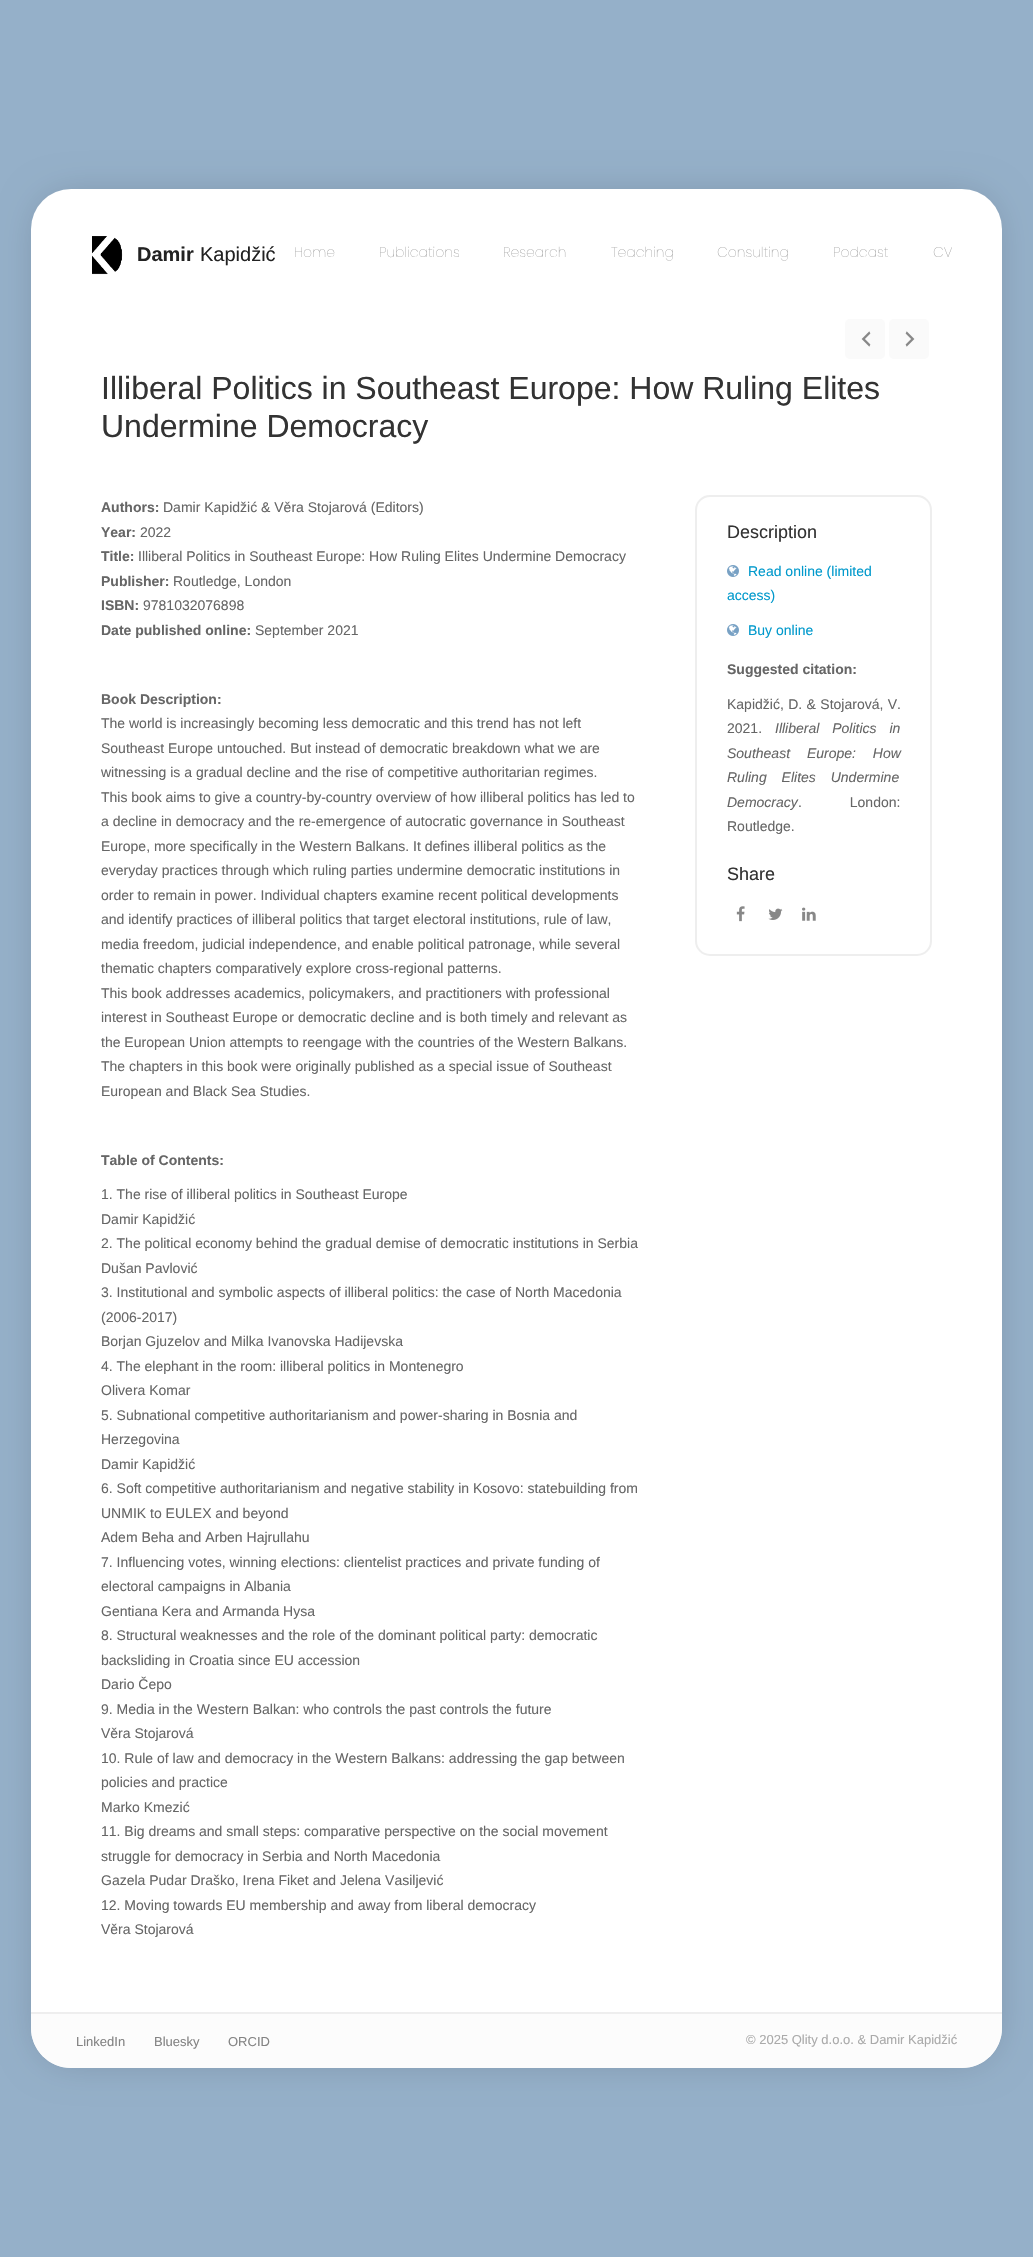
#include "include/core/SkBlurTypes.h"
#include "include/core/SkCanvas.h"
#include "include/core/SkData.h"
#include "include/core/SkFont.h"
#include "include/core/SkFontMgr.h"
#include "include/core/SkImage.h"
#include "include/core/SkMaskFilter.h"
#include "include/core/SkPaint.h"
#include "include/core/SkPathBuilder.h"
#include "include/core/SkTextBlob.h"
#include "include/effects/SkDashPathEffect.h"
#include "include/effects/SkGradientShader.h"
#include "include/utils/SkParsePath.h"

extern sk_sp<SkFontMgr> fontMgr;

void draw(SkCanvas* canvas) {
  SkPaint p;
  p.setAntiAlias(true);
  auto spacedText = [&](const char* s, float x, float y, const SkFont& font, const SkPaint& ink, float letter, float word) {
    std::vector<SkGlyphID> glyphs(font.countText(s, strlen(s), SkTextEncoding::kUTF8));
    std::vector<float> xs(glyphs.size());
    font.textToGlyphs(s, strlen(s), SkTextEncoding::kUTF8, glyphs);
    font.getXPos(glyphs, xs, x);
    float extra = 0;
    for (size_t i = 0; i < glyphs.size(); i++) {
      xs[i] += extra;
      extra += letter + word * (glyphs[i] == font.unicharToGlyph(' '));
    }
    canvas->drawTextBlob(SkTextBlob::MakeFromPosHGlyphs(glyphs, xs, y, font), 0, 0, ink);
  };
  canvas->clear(SkColorSetRGB(149, 176, 201));
  p.setColor(SkColorSetARGB(51, 0, 0, 0));
  p.setMaskFilter(SkMaskFilter::MakeBlur(kNormal_SkBlurStyle, 20));
  canvas->drawRoundRect(SkRect::MakeLTRB(41, 199, 992, 2058), 30, 30, p);
  p.setMaskFilter(nullptr);
  p.setColor(SK_ColorWHITE);
  canvas->drawRoundRect(SkRect::MakeLTRB(31, 189, 1002, 2068), 40, 40, p);
  canvas->drawImageRect(SkImages::DeferredFromEncodedData(SkData::MakeFromFileName("images/1.png")), SkRect::MakeLTRB(92, 236, 123, 275), SkSamplingOptions());
  p.setColor(SkColorSetRGB(250, 250, 250));
  canvas->drawRoundRect(SkRect::MakeLTRB(845, 319, 885, 359), 5, 5, p);
  canvas->drawImageRect(SkImages::DeferredFromEncodedData(SkData::MakeFromFileName("images/2.png")), SkRect::MakeLTRB(861, 331, 871, 347), SkSamplingOptions());
  canvas->drawRoundRect(SkRect::MakeLTRB(889, 319, 929, 359), 5, 5, p);
  canvas->drawImageRect(SkImages::DeferredFromEncodedData(SkData::MakeFromFileName("images/3.png")), SkRect::MakeLTRB(905, 331, 915, 347), SkSamplingOptions());
  p.setStyle(SkPaint::kStroke_Style);
  p.setStrokeWidth(2);
  p.setColor(SkColorSetRGB(238, 238, 238));
  canvas->drawRoundRect(SkRect::MakeLTRB(696, 496, 931, 955), 14, 14, p);
  canvas->drawImageRect(SkImages::DeferredFromEncodedData(SkData::MakeFromFileName("images/4.png")), SkRect::MakeLTRB(727, 565, 739, 577), SkSamplingOptions());
  canvas->drawImageRect(SkImages::DeferredFromEncodedData(SkData::MakeFromFileName("images/4.png")), SkRect::MakeLTRB(727, 624, 739, 636), SkSamplingOptions());
  canvas->drawImageRect(SkImages::DeferredFromEncodedData(SkData::MakeFromFileName("images/5.png")), SkRect::MakeLTRB(736, 906, 745, 922), SkSamplingOptions());
  canvas->drawImageRect(SkImages::DeferredFromEncodedData(SkData::MakeFromFileName("images/6.png")), SkRect::MakeLTRB(768, 908, 783, 920), SkSamplingOptions());
  canvas->drawImageRect(SkImages::DeferredFromEncodedData(SkData::MakeFromFileName("images/7.png")), SkRect::MakeLTRB(802, 907, 816, 921), SkSamplingOptions());
  p.setStyle(SkPaint::kFill_Style);
  p.setColor(SkColorSetRGB(252, 252, 252));
  canvas->drawPath(SkPathBuilder().moveTo(31, 2012).lineTo(1002, 2012).lineTo(1002, 2028).cubicTo(1002, 2050, 984, 2068, 962, 2068).lineTo(71, 2068).cubicTo(49, 2068, 31, 2050, 31, 2028).close().detach(), p);
  p.setColor(SkColorSetRGB(238, 238, 238));
  canvas->drawRect(SkRect::MakeLTRB(31, 2012, 1002, 2014), p);
  SkFont font1(fontMgr->matchFamilyStyle("Liberation Sans", SkFontStyle::Bold()), 20);
  font1.setSubpixel(true);
  p.setColor(SkColorSetRGB(34, 34, 34));
  canvas->drawString("Damir", 137, 261, font1, p);
  SkFont font2(fontMgr->matchFamilyStyle("Liberation Sans", SkFontStyle::Normal()), 20);
  font2.setSubpixel(true);
  canvas->drawString("Kapidžić", 200, 261, font2, p);
  SkFont font3(fontMgr->matchFamilyStyle("Poppins", SkFontStyle(200, SkFontStyle::kNormal_Width, SkFontStyle::kUpright_Slant)), 14);
  font3.setSubpixel(true);
  p.setColor(SkColorSetRGB(143, 143, 143));
  canvas->drawString("Home", 294, 257, font3, p);
  canvas->drawString("Publications", 379, 257, font3, p);
  canvas->drawString("Research", 503, 257, font3, p);
  canvas->drawString("Teaching", 611, 257, font3, p);
  canvas->drawString("Consulting", 717, 257, font3, p);
  canvas->drawString("Podcast", 833, 257, font3, p);
  canvas->drawString("CV", 933, 257, font3, p);
  SkFont font4(fontMgr->matchFamilyStyle("Liberation Sans", SkFontStyle::Normal()), 32);
  font4.setSubpixel(true);
  p.setColor(SkColorSetRGB(51, 51, 51));
  canvas->drawString("Illiberal Politics in Southeast Europe: How Ruling Elites", 101, 399, font4, p);
  canvas->drawString("Undermine Democracy", 101, 437, font4, p);
  SkFont font5(fontMgr->matchFamilyStyle("Liberation Sans", SkFontStyle::Bold()), 14);
  font5.setSubpixel(true);
  p.setColor(SkColorSetRGB(102, 102, 102));
  canvas->drawString("Authors:", 101, 512, font5, p);
  SkFont font6(fontMgr->matchFamilyStyle("Liberation Sans", SkFontStyle::Normal()), 14);
  font6.setSubpixel(true);
  canvas->drawString("Damir Kapidžić & Věra Stojarová (Editors)", 163, 512, font6, p);
  canvas->drawString("Year:", 101, 537, font5, p);
  canvas->drawString("2022", 140, 537, font6, p);
  canvas->drawString("Title:", 101, 561, font5, p);
  canvas->drawString("Illiberal Politics in Southeast Europe: How Ruling Elites Undermine Democracy", 138, 561, font6, p);
  canvas->drawString("Publisher:", 101, 586, font5, p);
  canvas->drawString("Routledge, London", 173, 586, font6, p);
  canvas->drawString("ISBN:", 101, 610, font5, p);
  canvas->drawString("9781032076898", 143, 610, font6, p);
  canvas->drawString("Date published online:", 101, 635, font5, p);
  canvas->drawString("September 2021", 255, 635, font6, p);
  canvas->drawString("Book Description:", 101, 704, font5, p);
  canvas->drawString("The world is increasingly becoming less democratic and this trend has not left", 101, 728, font6, p);
  canvas->drawString("Southeast Europe untouched. But instead of democratic breakdown what we are", 101, 753, font6, p);
  canvas->drawString("witnessing is a gradual decline and the rise of competitive authoritarian regimes.", 101, 777, font6, p);
  canvas->drawString("This book aims to give a country-by-country overview of how illiberal politics has led to", 101, 802, font6, p);
  canvas->drawString("a decline in democracy and the re-emergence of autocratic governance in Southeast", 101, 826, font6, p);
  canvas->drawString("Europe, more specifically in the Western Balkans. It defines illiberal politics as the", 101, 851, font6, p);
  canvas->drawString("everyday practices through which ruling parties undermine democratic institutions in", 101, 875, font6, p);
  canvas->drawString("order to remain in power. Individual chapters examine recent political developments", 101, 900, font6, p);
  canvas->drawString("and identify practices of illiberal politics that target electoral institutions, rule of law,", 101, 924, font6, p);
  canvas->drawString("media freedom, judicial independence, and enable political patronage, while several", 101, 949, font6, p);
  canvas->drawString("thematic chapters comparatively explore cross-regional patterns.", 101, 973, font6, p);
  canvas->drawString("This book addresses academics, policymakers, and practitioners with professional", 101, 998, font6, p);
  canvas->drawString("interest in Southeast Europe or democratic decline and is both timely and relevant as", 101, 1022, font6, p);
  canvas->drawString("the European Union attempts to reengage with the countries of the Western Balkans.", 101, 1047, font6, p);
  canvas->drawString("The chapters in this book were originally published as a special issue of Southeast", 101, 1071, font6, p);
  canvas->drawString("European and Black Sea Studies.", 101, 1096, font6, p);
  canvas->drawString("Table of Contents:", 101, 1165, font5, p);
  canvas->drawString("1. The rise of illiberal politics in Southeast Europe", 101, 1199, font6, p);
  canvas->drawString("Damir Kapidžić", 101, 1224, font6, p);
  canvas->drawString("2. The political economy behind the gradual demise of democratic institutions in Serbia", 101, 1248, font6, p);
  canvas->drawString("Dušan Pavlović", 101, 1273, font6, p);
  canvas->drawString("3. Institutional and symbolic aspects of illiberal politics: the case of North Macedonia", 101, 1297, font6, p);
  canvas->drawString("(2006-2017)", 101, 1322, font6, p);
  canvas->drawString("Borjan Gjuzelov and Milka Ivanovska Hadijevska", 101, 1346, font6, p);
  canvas->drawString("4. The elephant in the room: illiberal politics in Montenegro", 101, 1371, font6, p);
  canvas->drawString("Olivera Komar", 101, 1395, font6, p);
  canvas->drawString("5. Subnational competitive authoritarianism and power-sharing in Bosnia and", 101, 1420, font6, p);
  canvas->drawString("Herzegovina", 101, 1444, font6, p);
  canvas->drawString("Damir Kapidžić", 101, 1469, font6, p);
  canvas->drawString("6. Soft competitive authoritarianism and negative stability in Kosovo: statebuilding from", 101, 1493, font6, p);
  canvas->drawString("UNMIK to EULEX and beyond", 101, 1518, font6, p);
  canvas->drawString("Adem Beha and Arben Hajrullahu", 101, 1542, font6, p);
  canvas->drawString("7. Influencing votes, winning elections: clientelist practices and private funding of", 101, 1567, font6, p);
  canvas->drawString("electoral campaigns in Albania", 101, 1591, font6, p);
  canvas->drawString("Gentiana Kera and Armanda Hysa", 101, 1616, font6, p);
  canvas->drawString("8. Structural weaknesses and the role of the dominant political party: democratic", 101, 1640, font6, p);
  canvas->drawString("backsliding in Croatia since EU accession", 101, 1665, font6, p);
  canvas->drawString("Dario Čepo", 101, 1689, font6, p);
  canvas->drawString("9. Media in the Western Balkan: who controls the past controls the future", 101, 1714, font6, p);
  canvas->drawString("Věra Stojarová", 101, 1738, font6, p);
  canvas->drawString("10. Rule of law and democracy in the Western Balkans: addressing the gap between", 101, 1763, font6, p);
  canvas->drawString("policies and practice", 101, 1787, font6, p);
  canvas->drawString("Marko Kmezić", 101, 1812, font6, p);
  canvas->drawString("11. Big dreams and small steps: comparative perspective on the social movement", 101, 1836, font6, p);
  canvas->drawString("struggle for democracy in Serbia and North Macedonia", 101, 1861, font6, p);
  canvas->drawString("Gazela Pudar Draško, Irena Fiket and Jelena Vasiljević", 101, 1885, font6, p);
  canvas->drawString("12. Moving towards EU membership and away from liberal democracy", 101, 1910, font6, p);
  canvas->drawString("Věra Stojarová", 101, 1934, font6, p);
  SkFont font7(fontMgr->matchFamilyStyle("Liberation Sans", SkFontStyle::Normal()), 18);
  font7.setSubpixel(true);
  p.setColor(SkColorSetRGB(51, 51, 51));
  canvas->drawString("Description", 727, 538, font7, p);
  p.setColor(SkColorSetRGB(0, 153, 204));
  canvas->drawString("Read online (limited", 748, 576, font6, p);
  canvas->drawString("access)", 727, 600, font6, p);
  canvas->drawString("Buy online", 748, 635, font6, p);
  p.setColor(SkColorSetRGB(102, 102, 102));
  canvas->drawString("Suggested citation:", 727, 674, font5, p);
  spacedText("Kapidžić, D. & Stojarová, V.", 727, 709, font6, p, 0, 0.5f);
  canvas->drawString("2021.", 727, 733, font6, p);
  SkFont font8(fontMgr->matchFamilyStyle("Liberation Sans", SkFontStyle::Italic()), 14);
  font8.setSubpixel(true);
  spacedText("Illiberal Politics in", 775, 733, font8, p, 0, 9);
  spacedText("Southeast Europe: How", 727, 758, font8, p, 0, 13);
  spacedText("Ruling Elites Undermine", 727, 782, font8, p, 0, 11);
  canvas->drawString("Democracy", 727, 807, font8, p);
  spacedText(". London:", 798, 807, font6, p, 0, 44);
  canvas->drawString("Routledge.", 727, 831, font6, p);
  p.setColor(SkColorSetRGB(51, 51, 51));
  canvas->drawString("Share", 727, 880, font7, p);
  SkFont font9(fontMgr->matchFamilyStyle("Liberation Sans", SkFontStyle::Normal()), 13);
  font9.setSubpixel(true);
  p.setColor(SkColorSetRGB(131, 131, 131));
  canvas->drawString("LinkedIn", 76, 2046, font9, p);
  canvas->drawString("Bluesky", 154, 2046, font9, p);
  canvas->drawString("ORCID", 228, 2046, font9, p);
  p.setColor(SkColorSetRGB(170, 170, 170));
  canvas->drawString("© 2025 Qlity d.o.o. & Damir Kapidžić", 746, 2044, font9, p);
}
